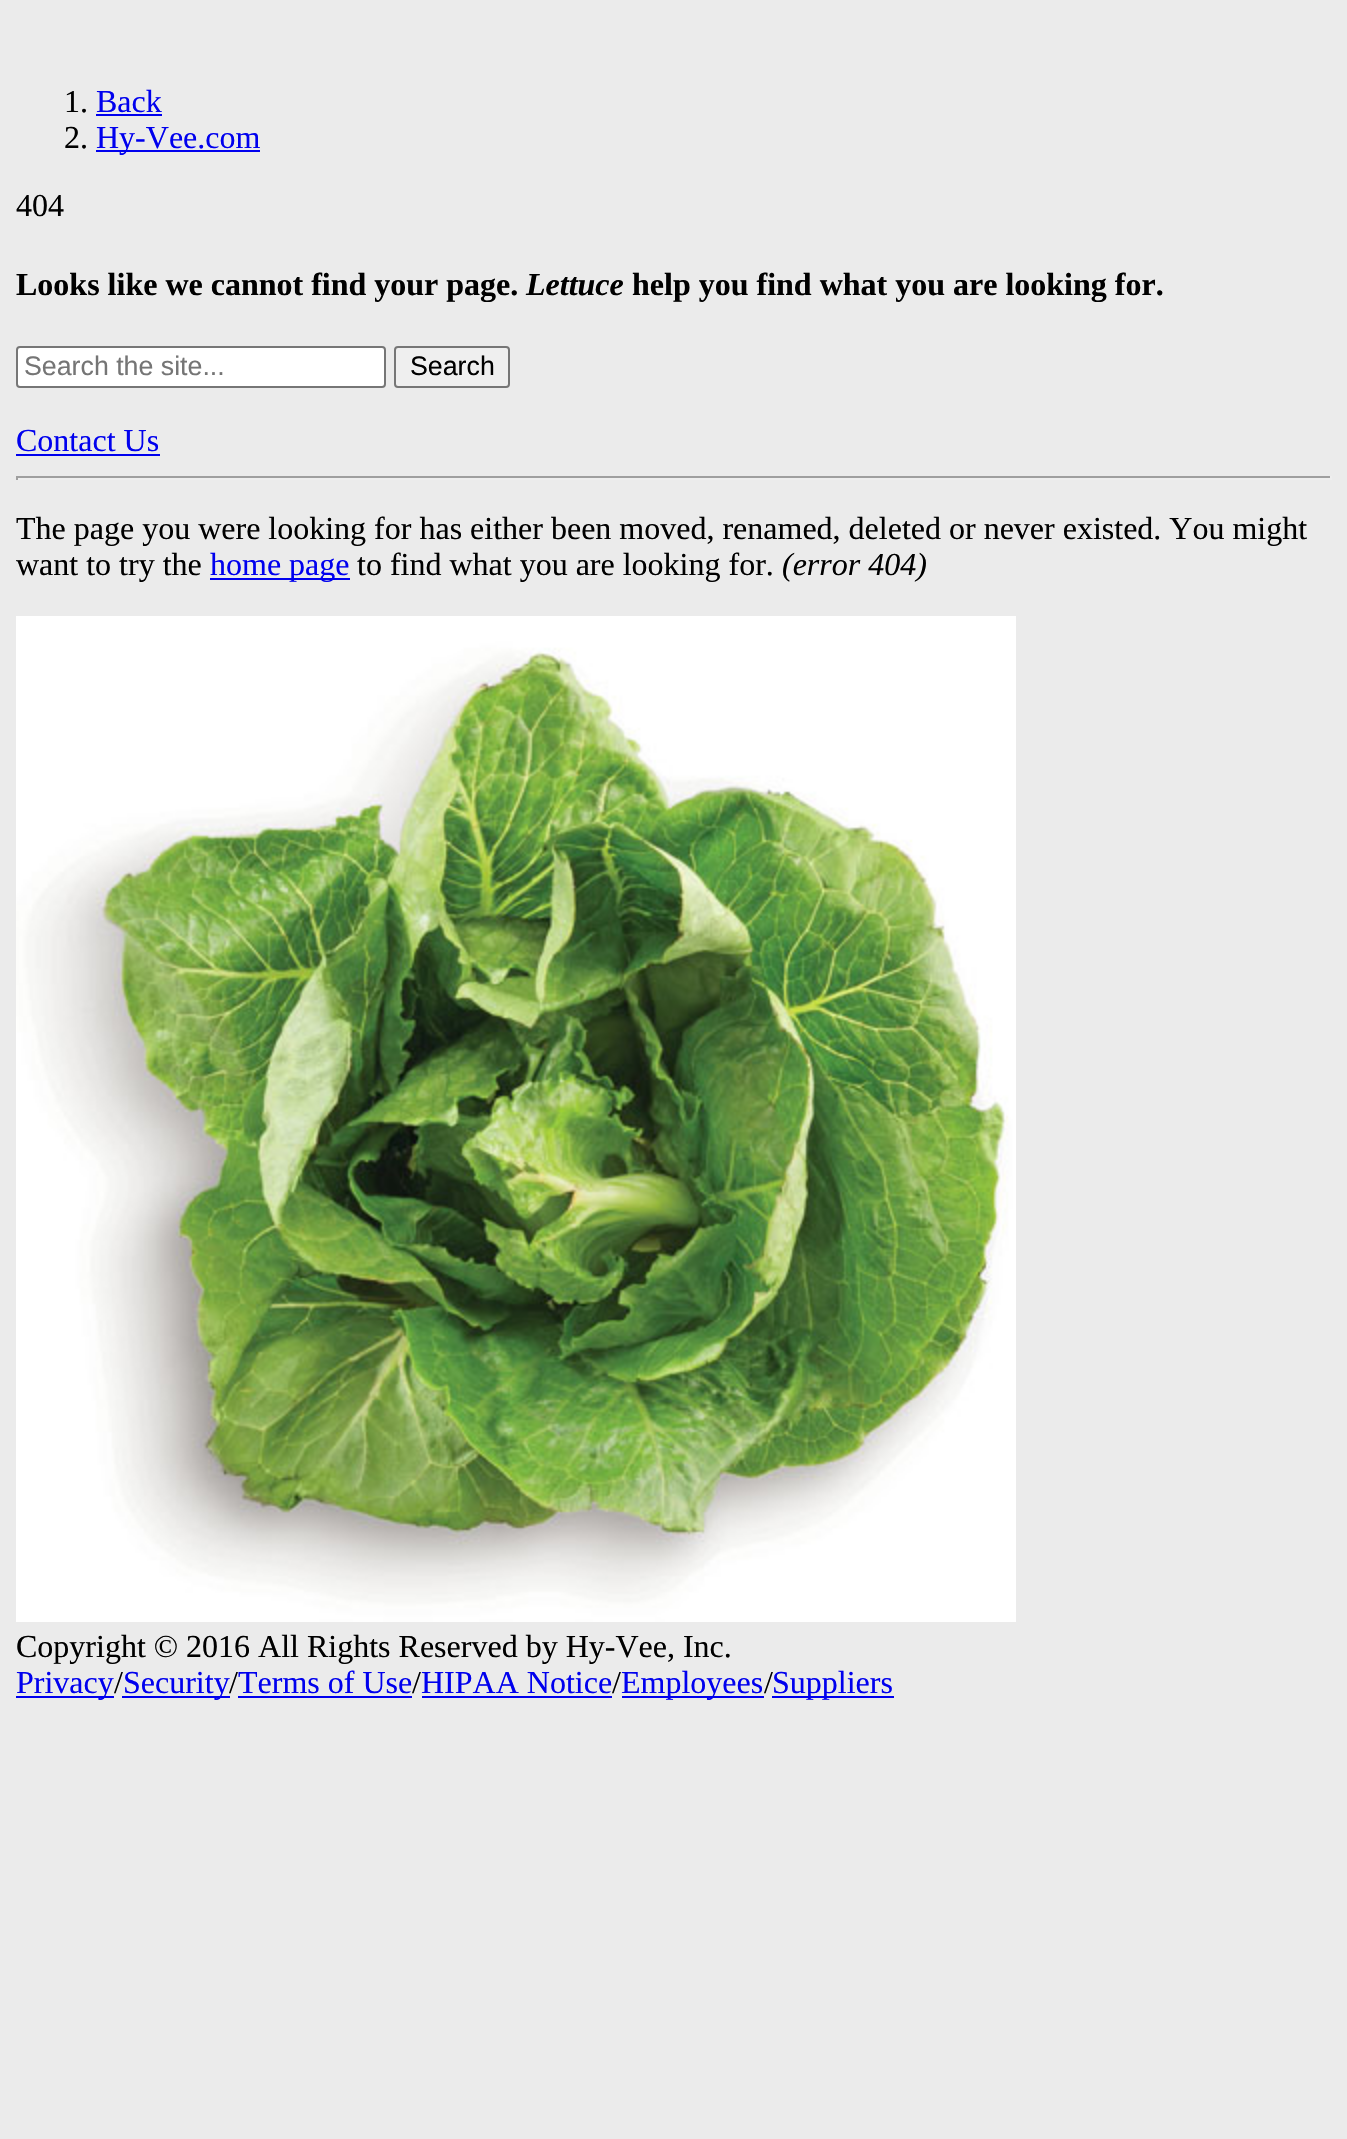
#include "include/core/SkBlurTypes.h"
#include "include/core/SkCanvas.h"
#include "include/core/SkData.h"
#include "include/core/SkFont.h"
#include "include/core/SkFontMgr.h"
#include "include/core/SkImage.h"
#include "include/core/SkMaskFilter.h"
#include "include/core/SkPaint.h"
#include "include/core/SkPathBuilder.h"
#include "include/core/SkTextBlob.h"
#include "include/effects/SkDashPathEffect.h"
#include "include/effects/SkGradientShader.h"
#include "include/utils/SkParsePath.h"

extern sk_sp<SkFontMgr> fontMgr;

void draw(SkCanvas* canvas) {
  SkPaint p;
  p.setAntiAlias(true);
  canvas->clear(SkColorSetRGB(235, 235, 235));
  p.setColor(SkColorSetRGB(0, 0, 238));
  canvas->drawRect(SkRect::MakeLTRB(96, 114, 162, 116), p);
  canvas->drawRect(SkRect::MakeLTRB(96, 150, 260, 152), p);
  p.setColor(SK_ColorWHITE);
  canvas->drawRoundRect(SkRect::MakeLTRB(17, 347, 385, 387), 3, 3, p);
  p.setStyle(SkPaint::kStroke_Style);
  p.setStrokeWidth(2);
  p.setColor(SkColorSetRGB(118, 118, 118));
  canvas->drawRoundRect(SkRect::MakeLTRB(17, 347, 385, 387), 3, 3, p);
  p.setStyle(SkPaint::kFill_Style);
  p.setColor(SkColorSetRGB(239, 239, 239));
  canvas->drawRoundRect(SkRect::MakeLTRB(395, 347, 509, 387), 3, 3, p);
  p.setStyle(SkPaint::kStroke_Style);
  p.setColor(SkColorSetRGB(118, 118, 118));
  canvas->drawRoundRect(SkRect::MakeLTRB(395, 347, 509, 387), 3, 3, p);
  p.setStyle(SkPaint::kFill_Style);
  p.setColor(SkColorSetRGB(0, 0, 238));
  canvas->drawRect(SkRect::MakeLTRB(16, 454, 160, 456), p);
  p.setColor(SkColorSetRGB(159, 159, 159));
  canvas->drawRect(SkRect::MakeLTRB(16, 476, 1332, 478), p);
  p.setColor(SkColorSetRGB(238, 238, 238));
  canvas->drawRect(SkRect::MakeLTRB(1330, 476, 1332, 480), p);
  canvas->drawRect(SkRect::MakeLTRB(16, 478, 1332, 480), p);
  p.setColor(SkColorSetRGB(159, 159, 159));
  canvas->drawRect(SkRect::MakeLTRB(16, 476, 18, 480), p);
  p.setColor(SkColorSetRGB(0, 0, 238));
  canvas->drawRect(SkRect::MakeLTRB(210, 578, 350, 580), p);
  canvas->drawImageRect(SkImages::DeferredFromEncodedData(SkData::MakeFromFileName("images/1.png")), SkRect::MakeLTRB(16, 616, 1016, 1622), SkSamplingOptions());
  canvas->drawRect(SkRect::MakeLTRB(16, 1696, 114, 1698), p);
  canvas->drawRect(SkRect::MakeLTRB(122, 1696, 230, 1698), p);
  canvas->drawRect(SkRect::MakeLTRB(238, 1696, 412, 1698), p);
  canvas->drawRect(SkRect::MakeLTRB(422, 1696, 612, 1698), p);
  canvas->drawRect(SkRect::MakeLTRB(622, 1696, 764, 1698), p);
  canvas->drawRect(SkRect::MakeLTRB(772, 1696, 894, 1698), p);
  SkFont font1(fontMgr->matchFamilyStyle("Liberation Serif", SkFontStyle::Normal()), 32);
  font1.setSubpixel(true);
  p.setColor(SK_ColorBLACK);
  canvas->drawString("1.", 64, 112, font1, p);
  p.setColor(SkColorSetRGB(0, 0, 238));
  canvas->drawString("Back", 96, 112, font1, p);
  p.setColor(SK_ColorBLACK);
  canvas->drawString("2.", 64, 148, font1, p);
  p.setColor(SkColorSetRGB(0, 0, 238));
  canvas->drawString("Hy-Vee.com", 96, 148, font1, p);
  p.setColor(SK_ColorBLACK);
  canvas->drawString("404", 16, 216, font1, p);
  SkFont font2(fontMgr->matchFamilyStyle("Liberation Serif", SkFontStyle::Bold()), 32);
  font2.setSubpixel(true);
  canvas->drawString("Looks like we cannot find your page.", 16, 295, font2, p);
  SkFont font3(fontMgr->matchFamilyStyle("Liberation Serif", SkFontStyle::BoldItalic()), 32);
  font3.setSubpixel(true);
  canvas->drawString("Lettuce", 526, 295, font3, p);
  canvas->drawString("help you find what you are looking for.", 632, 295, font2, p);
  SkFont font4(fontMgr->matchFamilyStyle("Liberation Sans", SkFontStyle::Normal()), 26.75f);
  font4.setSubpixel(true);
  p.setColor(SkColorSetRGB(117, 117, 117));
  canvas->drawString("Search the site...", 24, 375, font4, p);
  p.setColor(SK_ColorBLACK);
  canvas->drawString("Search", 410, 375, font4, p);
  p.setColor(SkColorSetRGB(0, 0, 238));
  canvas->drawString("Contact Us", 16, 451, font1, p);
  p.setColor(SK_ColorBLACK);
  canvas->drawString("The page you were looking for has either been moved, renamed, deleted or never existed. You might", 16, 539, font1, p);
  canvas->drawString("want to try the", 16, 575, font1, p);
  p.setColor(SkColorSetRGB(0, 0, 238));
  canvas->drawString("home page", 210, 575, font1, p);
  p.setColor(SK_ColorBLACK);
  canvas->drawString("to find what you are looking for.", 357, 575, font1, p);
  SkFont font5(fontMgr->matchFamilyStyle("Liberation Serif", SkFontStyle::Italic()), 32);
  font5.setSubpixel(true);
  canvas->drawString("(error 404)", 782, 575, font5, p);
  canvas->drawString("Copyright © 2016 All Rights Reserved by Hy-Vee, Inc.", 16, 1657, font1, p);
  p.setColor(SkColorSetRGB(0, 0, 238));
  canvas->drawString("Privacy", 16, 1693, font1, p);
  p.setColor(SK_ColorBLACK);
  canvas->drawString("/", 114, 1693, font1, p);
  p.setColor(SkColorSetRGB(0, 0, 238));
  canvas->drawString("Security", 123, 1693, font1, p);
  p.setColor(SK_ColorBLACK);
  canvas->drawString("/", 229, 1693, font1, p);
  p.setColor(SkColorSetRGB(0, 0, 238));
  canvas->drawString("Terms of Use", 238, 1693, font1, p);
  p.setColor(SK_ColorBLACK);
  canvas->drawString("/", 412, 1693, font1, p);
  p.setColor(SkColorSetRGB(0, 0, 238));
  canvas->drawString("HIPAA Notice", 421, 1693, font1, p);
  p.setColor(SK_ColorBLACK);
  canvas->drawString("/", 612, 1693, font1, p);
  p.setColor(SkColorSetRGB(0, 0, 238));
  canvas->drawString("Employees", 621, 1693, font1, p);
  p.setColor(SK_ColorBLACK);
  canvas->drawString("/", 764, 1693, font1, p);
  p.setColor(SkColorSetRGB(0, 0, 238));
  canvas->drawString("Suppliers", 772, 1693, font1, p);
}
